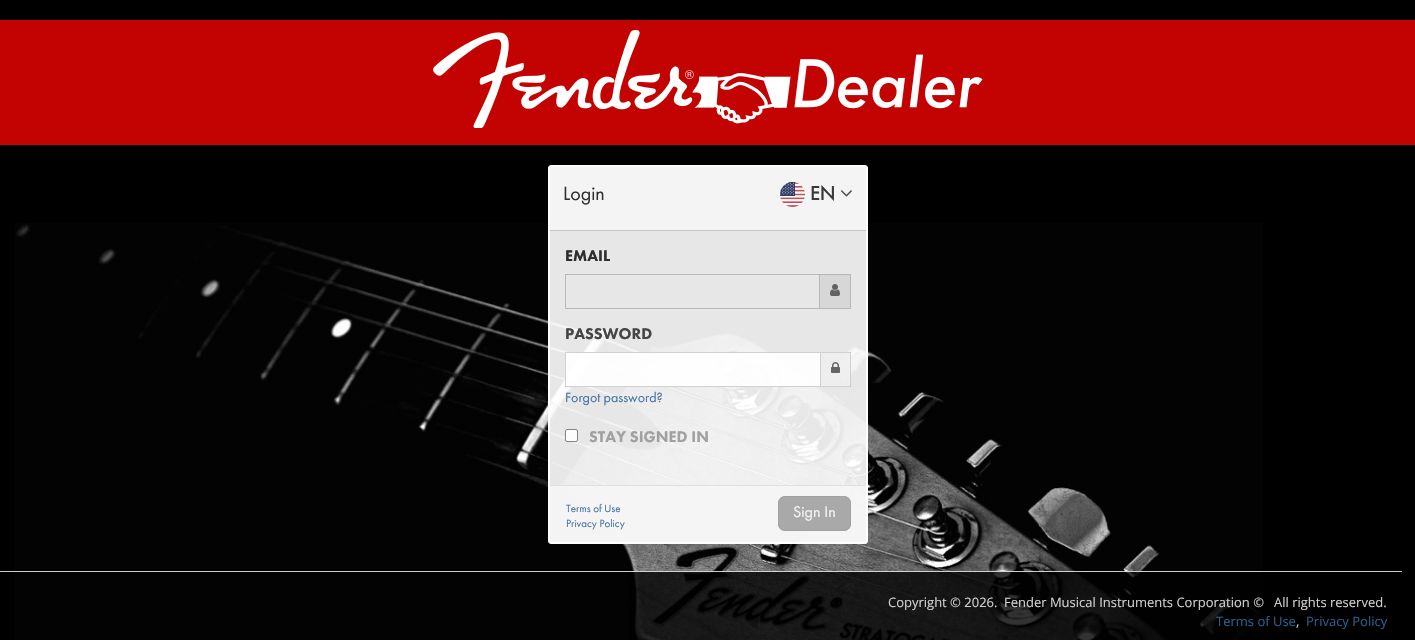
#include "include/core/SkBlurTypes.h"
#include "include/core/SkCanvas.h"
#include "include/core/SkData.h"
#include "include/core/SkFont.h"
#include "include/core/SkFontMgr.h"
#include "include/core/SkImage.h"
#include "include/core/SkMaskFilter.h"
#include "include/core/SkPaint.h"
#include "include/core/SkPathBuilder.h"
#include "include/core/SkTextBlob.h"
#include "include/effects/SkDashPathEffect.h"
#include "include/effects/SkGradientShader.h"
#include "include/utils/SkParsePath.h"

extern sk_sp<SkFontMgr> fontMgr;

void draw(SkCanvas* canvas) {
  SkPaint p;
  p.setAntiAlias(true);
  canvas->clear(SK_ColorBLACK);
  canvas->drawImageRect(SkImages::DeferredFromEncodedData(SkData::MakeFromFileName("images/1.png")), SkRect::MakeLTRB(15, 223, 1263, 640), SkSamplingOptions());
  p.setColor(SkColorSetRGB(195, 2, 2));
  canvas->drawRect(SkRect::MakeLTRB(0, 20, 1415, 145), p);
  canvas->drawImageRect(SkImages::DeferredFromEncodedData(SkData::MakeFromFileName("images/2.png")), SkRect::MakeLTRB(433, 30, 983, 128), SkSamplingOptions());
  canvas->save();
  canvas->clipPath(SkPathBuilder(SkPathFillType::kEvenOdd).moveTo(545, 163).lineTo(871, 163).lineTo(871, 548).lineTo(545, 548).close().moveTo(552, 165).lineTo(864, 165).cubicTo(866, 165, 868, 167, 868, 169).lineTo(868, 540).cubicTo(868, 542, 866, 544, 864, 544).lineTo(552, 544).cubicTo(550, 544, 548, 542, 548, 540).lineTo(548, 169).cubicTo(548, 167, 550, 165, 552, 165).close().detach(), true);
  p.setColor(SkColorSetARGB(13, 0, 0, 0));
  p.setMaskFilter(SkMaskFilter::MakeBlur(kNormal_SkBlurStyle, 0.5f));
  canvas->drawRoundRect(SkRect::MakeLTRB(548, 166, 868, 545), 4, 4, p);
  p.setMaskFilter(nullptr);
  canvas->restore();
  p.setColor(SkColorSetARGB(230, 255, 255, 255));
  canvas->drawRoundRect(SkRect::MakeLTRB(548, 165, 868, 544), 4, 4, p);
  p.setStyle(SkPaint::kStroke_Style);
  p.setStrokeWidth(2);
  canvas->drawRoundRect(SkRect::MakeLTRB(549, 166, 867, 543), 3, 3, p);
  p.setStyle(SkPaint::kFill_Style);
  p.setColor(SkColorSetARGB(230, 245, 245, 245));
  canvas->drawPath(SkPathBuilder().moveTo(551, 167).lineTo(865, 167).cubicTo(865.5f, 167, 866, 167.5f, 866, 168).lineTo(866, 231).lineTo(550, 231).lineTo(550, 168).cubicTo(550, 167.5f, 550.5f, 167, 551, 167).close().detach(), p);
  p.setColor(SkColorSetRGB(199, 199, 199));
  canvas->drawRect(SkRect::MakeLTRB(550, 230, 866, 231), p);
  canvas->drawImageRect(SkImages::DeferredFromEncodedData(SkData::MakeFromFileName("images/3.png")), SkRect::MakeLTRB(780, 182, 805, 207), SkSamplingOptions());
  canvas->drawImageRect(SkImages::DeferredFromEncodedData(SkData::MakeFromFileName("images/4.png")), SkRect::MakeLTRB(840, 190, 852, 197), SkSamplingOptions());
  p.setStyle(SkPaint::kStroke_Style);
  p.setStrokeWidth(1);
  p.setColor(SkColorSetRGB(184, 184, 184));
  canvas->drawRect(SkRect::MakeLTRB(565.5f, 274.5f, 819.5f, 308.5f), p);
  p.setStyle(SkPaint::kFill_Style);
  p.setColor(SkColorSetRGB(215, 215, 215));
  canvas->drawRect(SkRect::MakeLTRB(820, 275, 850, 308), p);
  p.setColor(SkColorSetRGB(184, 184, 184));
  canvas->drawRect(SkRect::MakeLTRB(820, 274, 851, 275), p);
  canvas->drawRect(SkRect::MakeLTRB(850, 274, 851, 309), p);
  canvas->drawRect(SkRect::MakeLTRB(820, 308, 851, 309), p);
  canvas->drawImageRect(SkImages::DeferredFromEncodedData(SkData::MakeFromFileName("images/5.png")), SkRect::MakeLTRB(830, 284, 840, 296), SkSamplingOptions());
  p.setColor(SkColorSetARGB(230, 255, 255, 255));
  canvas->drawRect(SkRect::MakeLTRB(565.5f, 352.5f, 820.5f, 386.5f), p);
  p.setStyle(SkPaint::kStroke_Style);
  p.setColor(SkColorSetRGB(209, 209, 209));
  canvas->drawRect(SkRect::MakeLTRB(565.5f, 352.5f, 820.5f, 386.5f), p);
  p.setStyle(SkPaint::kFill_Style);
  p.setColor(SkColorSetARGB(230, 238, 238, 238));
  canvas->drawRect(SkRect::MakeLTRB(821, 353, 851, 387), p);
  p.setColor(SkColorSetRGB(207, 207, 207));
  canvas->drawRect(SkRect::MakeLTRB(821, 352, 851, 353), p);
  p.setColor(SkColorSetARGB(230, 204, 204, 204));
  canvas->drawRect(SkRect::MakeLTRB(850, 352, 851, 387), p);
  canvas->drawRect(SkRect::MakeLTRB(821, 386, 851, 387), p);
  canvas->drawImageRect(SkImages::DeferredFromEncodedData(SkData::MakeFromFileName("images/6.png")), SkRect::MakeLTRB(831, 362, 840, 373), SkSamplingOptions());
  p.setColor(SkColorSetARGB(230, 255, 255, 255));
  canvas->drawRoundRect(SkRect::MakeLTRB(565, 429, 578, 442), 2, 2, p);
  p.setStyle(SkPaint::kStroke_Style);
  p.setColor(SkColorSetARGB(230, 118, 118, 118));
  canvas->drawRoundRect(SkRect::MakeLTRB(565.5f, 429.5f, 577.5f, 441.5f), 1.5f, 1.5f, p);
  p.setStyle(SkPaint::kFill_Style);
  p.setColor(SkColorSetARGB(230, 245, 245, 245));
  canvas->drawPath(SkPathBuilder().moveTo(550, 485).lineTo(866, 485).lineTo(866, 541).cubicTo(866, 541.5f, 865.5f, 542, 865, 542).lineTo(551, 542).cubicTo(550.5f, 542, 550, 541.5f, 550, 541).close().detach(), p);
  p.setColor(SkColorSetRGB(223, 223, 223));
  canvas->drawRect(SkRect::MakeLTRB(550, 485, 866, 486), p);
  p.setColor(SkColorSetARGB(230, 161, 161, 161));
  canvas->drawRoundRect(SkRect::MakeLTRB(778, 496, 851, 531), 7, 7, p);
  p.setStyle(SkPaint::kStroke_Style);
  canvas->drawRoundRect(SkRect::MakeLTRB(778.5f, 496.5f, 850.5f, 530.5f), 6.5f, 6.5f, p);
  p.setStyle(SkPaint::kFill_Style);
  p.setColor(SkColorSetARGB(204, 0, 0, 0));
  canvas->drawRect(SkRect::MakeLTRB(629, 571, 1263, 640), p);
  p.setColor(SkColorSetARGB(204, 255, 255, 255));
  canvas->drawRect(SkRect::MakeLTRB(0, 571, 1402, 572), p);
  SkFont font1(fontMgr->matchFamilyStyle("Futura PT", SkFontStyle::Normal()), 20);
  font1.setSubpixel(true);
  p.setColor(SkColorSetRGB(46, 46, 46));
  canvas->drawString("Login", 563, 200, font1, p);
  SkFont font2(fontMgr->matchFamilyStyle("Futura PT", SkFontStyle::Bold()), 20);
  font2.setSubpixel(true);
  p.setColor(SkColorSetRGB(58, 58, 58));
  canvas->drawString("EN", 810, 200, font2, p);
  SkFont font3(fontMgr->matchFamilyStyle("Futura PT", SkFontStyle(900, SkFontStyle::kNormal_Width, SkFontStyle::kUpright_Slant)), 16);
  font3.setSubpixel(true);
  p.setColor(SkColorSetRGB(46, 46, 46));
  canvas->drawString("EMAIL", 565, 261, font3, p);
  p.setColor(SkColorSetRGB(69, 69, 69));
  canvas->drawString("PASSWORD", 565, 339, font3, p);
  SkFont font4(fontMgr->matchFamilyStyle("Futura PT", SkFontStyle::Normal()), 14);
  font4.setSubpixel(true);
  p.setColor(SkColorSetRGB(69, 115, 161));
  canvas->drawString("Forgot password?", 565, 402, font4, p);
  p.setColor(SkColorSetRGB(161, 161, 161));
  canvas->drawString("STAY SIGNED IN", 589, 442, font3, p);
  SkFont font5(fontMgr->matchFamilyStyle("Futura PT", SkFontStyle::Normal()), 11);
  font5.setSubpixel(true);
  p.setColor(SkColorSetRGB(69, 115, 161));
  canvas->drawString("Terms of Use", 566, 512, font5, p);
  canvas->drawString("Privacy Policy", 566, 527, font5, p);
  SkFont font6(fontMgr->matchFamilyStyle("Futura PT", SkFontStyle::Normal()), 16);
  font6.setSubpixel(true);
  p.setColor(SkColorSetRGB(246, 246, 246));
  canvas->drawString("Sign In", 793, 517, font6, p);
  SkFont font7(fontMgr->matchFamilyStyle("Open Sans", SkFontStyle::Normal()), 13);
  font7.setSubpixel(true);
  p.setColor(SkColorSetRGB(208, 208, 208));
  canvas->drawString("Copyright © 2026.", 888, 607, font7, p);
  canvas->drawString("Fender Musical Instruments Corporation ©", 1004, 607, font7, p);
  canvas->drawString("All rights reserved.", 1274, 607, font7, p);
  p.setColor(SkColorSetRGB(40, 95, 142));
  canvas->drawString("Terms of Use", 1216, 626, font7, p);
  p.setColor(SkColorSetRGB(208, 208, 208));
  canvas->drawString(",", 1296, 626, font7, p);
  p.setColor(SkColorSetRGB(40, 95, 142));
  canvas->drawString("Privacy Policy", 1306, 626, font7, p);
}
